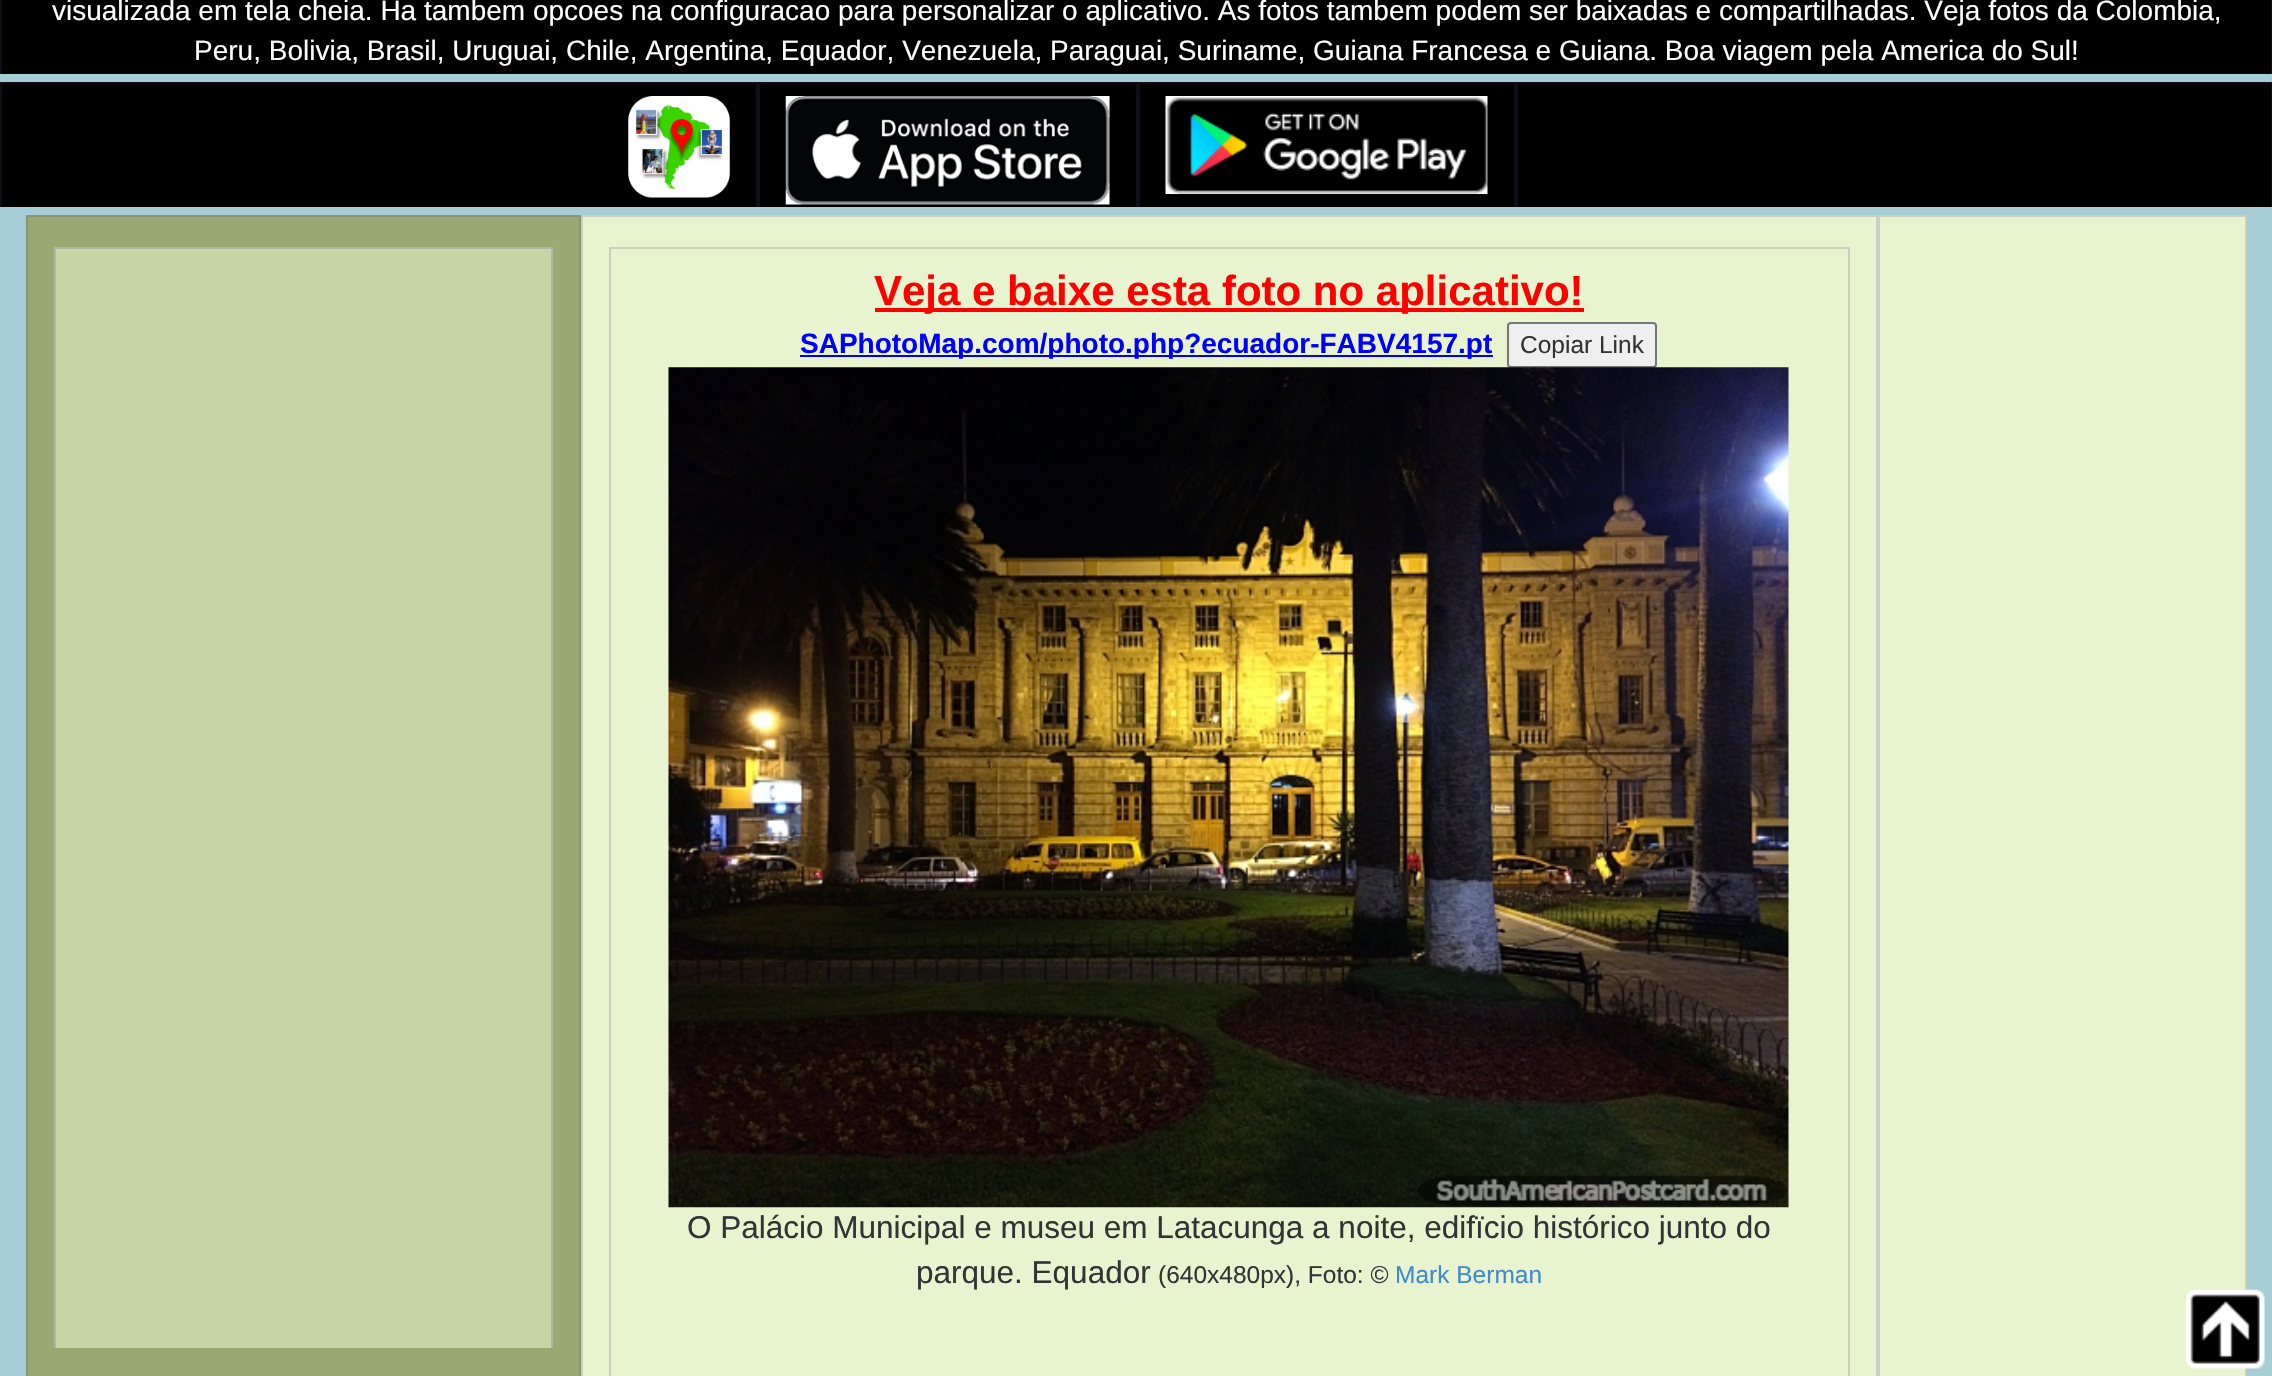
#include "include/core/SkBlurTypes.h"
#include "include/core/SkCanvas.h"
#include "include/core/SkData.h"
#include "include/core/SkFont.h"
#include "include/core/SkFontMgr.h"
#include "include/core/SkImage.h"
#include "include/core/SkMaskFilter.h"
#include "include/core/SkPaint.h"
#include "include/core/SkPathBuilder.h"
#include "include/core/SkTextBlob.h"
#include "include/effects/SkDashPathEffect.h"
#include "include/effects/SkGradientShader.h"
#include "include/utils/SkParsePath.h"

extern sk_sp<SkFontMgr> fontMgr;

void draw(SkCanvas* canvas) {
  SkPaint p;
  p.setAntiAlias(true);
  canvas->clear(SkColorSetRGB(166, 204, 214));
  p.setColor(SK_ColorBLACK);
  canvas->drawRect(SkRect::MakeLTRB(2, 0, 2271, 74), p);
  canvas->drawRect(SkRect::MakeLTRB(2, 84, 2271, 207), p);
  canvas->save();
  canvas->clipRect(SkRect::MakeLTRB(0, 0, 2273, 74));
  p.setStyle(SkPaint::kStroke_Style);
  p.setStrokeWidth(2);
  p.setColor(SkColorSetRGB(17, 12, 25));
  canvas->drawRect(SkRect::MakeLTRB(1, -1, 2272, 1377), p);
  canvas->restore();
  canvas->save();
  canvas->clipRect(SkRect::MakeLTRB(0, 82, 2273, 207));
  canvas->drawRect(SkRect::MakeLTRB(1, 83, 757, 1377), p);
  canvas->restore();
  canvas->drawImageRect(SkImages::DeferredFromEncodedData(SkData::MakeFromFileName("images/1.png")), SkRect::MakeLTRB(628, 96, 730, 198), SkSamplingOptions());
  canvas->save();
  canvas->clipRect(SkRect::MakeLTRB(0, 82, 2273, 207));
  canvas->drawRect(SkRect::MakeLTRB(759, 83, 1137, 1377), p);
  canvas->restore();
  canvas->drawImageRect(SkImages::DeferredFromEncodedData(SkData::MakeFromFileName("images/2.png")), SkRect::MakeLTRB(785, 96, 1110, 205), SkSamplingOptions());
  canvas->save();
  canvas->clipRect(SkRect::MakeLTRB(0, 82, 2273, 207));
  canvas->drawRect(SkRect::MakeLTRB(1139, 83, 1515, 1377), p);
  canvas->restore();
  canvas->drawImageRect(SkImages::DeferredFromEncodedData(SkData::MakeFromFileName("images/3.png")), SkRect::MakeLTRB(1165, 96, 1488, 194), SkSamplingOptions());
  canvas->save();
  canvas->clipRect(SkRect::MakeLTRB(0, 82, 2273, 207));
  canvas->drawRect(SkRect::MakeLTRB(1517, 83, 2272, 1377), p);
  canvas->restore();
  p.setStyle(SkPaint::kFill_Style);
  p.setColor(SkColorSetRGB(152, 169, 115));
  canvas->drawRect(SkRect::MakeLTRB(27, 216, 580, 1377), p);
  p.setStyle(SkPaint::kStroke_Style);
  p.setColor(SkColorSetRGB(139, 147, 117));
  canvas->drawRect(SkRect::MakeLTRB(27, 216, 580, 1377), p);
  p.setStyle(SkPaint::kFill_Style);
  p.setColor(SkColorSetRGB(199, 214, 166));
  canvas->drawRect(SkRect::MakeLTRB(56, 249, 551, 1348), p);
  canvas->save();
  canvas->clipRect(SkRect::MakeLTRB(54, 247, 553, 1348));
  p.setStyle(SkPaint::kStroke_Style);
  p.setColor(SkColorSetRGB(176, 183, 158));
  canvas->drawRect(SkRect::MakeLTRB(55, 248, 552, 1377), p);
  canvas->restore();
  p.setStyle(SkPaint::kFill_Style);
  p.setColor(SkColorSetRGB(232, 243, 208));
  canvas->drawRect(SkRect::MakeLTRB(582, 216, 1877, 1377), p);
  p.setStyle(SkPaint::kStroke_Style);
  p.setColor(SkColorSetRGB(203, 207, 191));
  canvas->drawRect(SkRect::MakeLTRB(582, 216, 1877, 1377), p);
  canvas->drawRect(SkRect::MakeLTRB(610, 248, 1849, 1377), p);
  p.setStyle(SkPaint::kFill_Style);
  p.setColor(SkColorSetRGB(255, 0, 0));
  canvas->drawRect(SkRect::MakeLTRB(875, 308, 1584, 312), p);
  p.setColor(SkColorSetRGB(0, 0, 255));
  canvas->drawRect(SkRect::MakeLTRB(800, 355, 1493, 357), p);
  p.setColor(SkColorSetRGB(239, 239, 239));
  canvas->drawRoundRect(SkRect::MakeLTRB(1508, 323, 1656, 367), 3, 3, p);
  p.setStyle(SkPaint::kStroke_Style);
  p.setColor(SkColorSetRGB(118, 118, 118));
  canvas->drawRoundRect(SkRect::MakeLTRB(1508, 323, 1656, 367), 3, 3, p);
  canvas->drawImageRect(SkImages::DeferredFromEncodedData(SkData::MakeFromFileName("images/4.png")), SkRect::MakeLTRB(668, 367, 1789, 1208), SkSamplingOptions());
  p.setStyle(SkPaint::kFill_Style);
  p.setColor(SkColorSetRGB(232, 243, 208));
  canvas->drawRect(SkRect::MakeLTRB(1879, 216, 2246, 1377), p);
  p.setStyle(SkPaint::kStroke_Style);
  p.setColor(SkColorSetRGB(203, 207, 191));
  canvas->drawRect(SkRect::MakeLTRB(1879, 216, 2246, 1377), p);
  canvas->drawImageRect(SkImages::DeferredFromEncodedData(SkData::MakeFromFileName("images/5.png")), SkRect::MakeLTRB(2185, 1289, 2265, 1369), SkSamplingOptions());
  SkFont font1(fontMgr->matchFamilyStyle("Liberation Sans", SkFontStyle::Normal()), 28);
  font1.setSubpixel(true);
  p.setStyle(SkPaint::kFill_Style);
  p.setColor(SK_ColorWHITE);
  canvas->drawString("visualizada em tela cheia. Ha tambem opcoes na configuracao para personalizar o aplicativo. As fotos tambem podem ser baixadas e compartilhadas. Veja fotos da Colombia,", 52, 20, font1, p);
  canvas->drawString("Peru, Bolivia, Brasil, Uruguai, Chile, Argentina, Equador, Venezuela, Paraguai, Suriname, Guiana Francesa e Guiana. Boa viagem pela America do Sul!", 194, 60, font1, p);
  SkFont font2(fontMgr->matchFamilyStyle("Liberation Sans", SkFontStyle::Bold()), 42);
  font2.setSubpixel(true);
  p.setColor(SkColorSetRGB(255, 0, 0));
  canvas->drawString("Veja e baixe esta foto no aplicativo!", 874, 305, font2, p);
  SkFont font3(fontMgr->matchFamilyStyle("Liberation Sans", SkFontStyle::Bold()), 28);
  font3.setSubpixel(true);
  p.setColor(SkColorSetRGB(0, 0, 255));
  canvas->drawString("SAPhotoMap.com/photo.php?ecuador-FABV4157.pt", 800, 353, font3, p);
  SkFont font4(fontMgr->matchFamilyStyle("Liberation Sans", SkFontStyle::Normal()), 24.5f);
  font4.setSubpixel(true);
  p.setColor(SkColorSetRGB(51, 51, 51));
  canvas->drawString("Copiar Link", 1520, 353, font4, p);
  SkFont font5(fontMgr->matchFamilyStyle("Liberation Sans", SkFontStyle::Normal()), 31.5f);
  font5.setSubpixel(true);
  canvas->drawString("O Palácio Municipal e museu em Latacunga a noite, edifïcio histórico junto do", 687, 1238, font5, p);
  canvas->drawString("parque. Equador", 916, 1283, font5, p);
  canvas->drawString("(640x480px), Foto: ©", 1158, 1283, font4, p);
  p.setColor(SkColorSetRGB(66, 139, 202));
  canvas->drawString("Mark Berman", 1395, 1283, font4, p);
}
